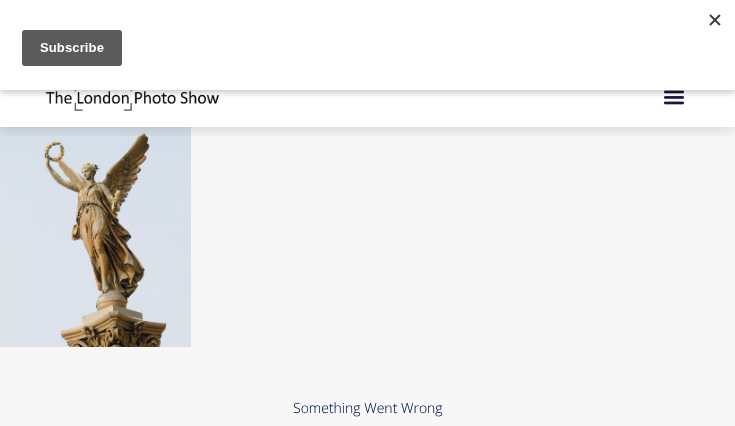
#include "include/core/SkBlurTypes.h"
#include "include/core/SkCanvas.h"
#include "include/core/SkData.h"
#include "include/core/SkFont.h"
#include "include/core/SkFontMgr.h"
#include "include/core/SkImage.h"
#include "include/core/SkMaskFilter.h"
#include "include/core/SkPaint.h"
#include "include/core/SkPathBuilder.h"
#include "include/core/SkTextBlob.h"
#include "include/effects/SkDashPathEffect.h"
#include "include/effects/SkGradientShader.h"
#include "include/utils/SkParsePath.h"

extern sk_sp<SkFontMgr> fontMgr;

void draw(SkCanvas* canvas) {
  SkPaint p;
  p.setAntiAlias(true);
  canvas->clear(SK_ColorWHITE);
  p.setColor(SkColorSetRGB(247, 247, 247));
  canvas->drawRect(SkRect::MakeLTRB(0, 127, 735, 426), p);
  canvas->drawImageRect(SkImages::DeferredFromEncodedData(SkData::MakeFromFileName("images/4.png")), SkRect::MakeLTRB(0, 127, 191, 347), SkSamplingOptions());
  canvas->save();
  canvas->clipRect(SkRect::MakeLTRB(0, 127, 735, 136));
  p.setColor(SkColorSetARGB(26, 0, 0, 0));
  p.setMaskFilter(SkMaskFilter::MakeBlur(kNormal_SkBlurStyle, 5));
  canvas->drawRect(SkRect::MakeLTRB(0, 74, 733, 132), p);
  p.setMaskFilter(nullptr);
  canvas->restore();
  canvas->drawImageRect(SkImages::DeferredFromEncodedData(SkData::MakeFromFileName("images/2.png")), SkRect::MakeLTRB(45, 90, 220, 111), SkSamplingOptions());
  canvas->drawImageRect(SkImages::DeferredFromEncodedData(SkData::MakeFromFileName("images/3.png")), SkRect::MakeLTRB(663, 90, 685, 105), SkSamplingOptions());
  p.setColor(SkColorSetARGB(51, 0, 0, 0));
  p.setMaskFilter(SkMaskFilter::MakeBlur(kNormal_SkBlurStyle, 3));
  canvas->drawRect(SkRect::MakeLTRB(0, 3, 735, 93), p);
  p.setMaskFilter(nullptr);
  p.setColor(SK_ColorWHITE);
  canvas->drawRect(SkRect::MakeLTRB(0, 0, 735, 90), p);
  canvas->drawImageRect(SkImages::DeferredFromEncodedData(SkData::MakeFromFileName("images/1.png")), SkRect::MakeLTRB(22, 14, 721, 66), SkSamplingOptions());
  SkFont font1(fontMgr->matchFamilyStyle("Open Sans", SkFontStyle(300, SkFontStyle::kNormal_Width, SkFontStyle::kUpright_Slant)), 14);
  font1.setSubpixel(true);
  p.setColor(SkColorSetRGB(5, 29, 75));
  canvas->drawString("Something Went Wrong", 293, 413, font1, p);
}
